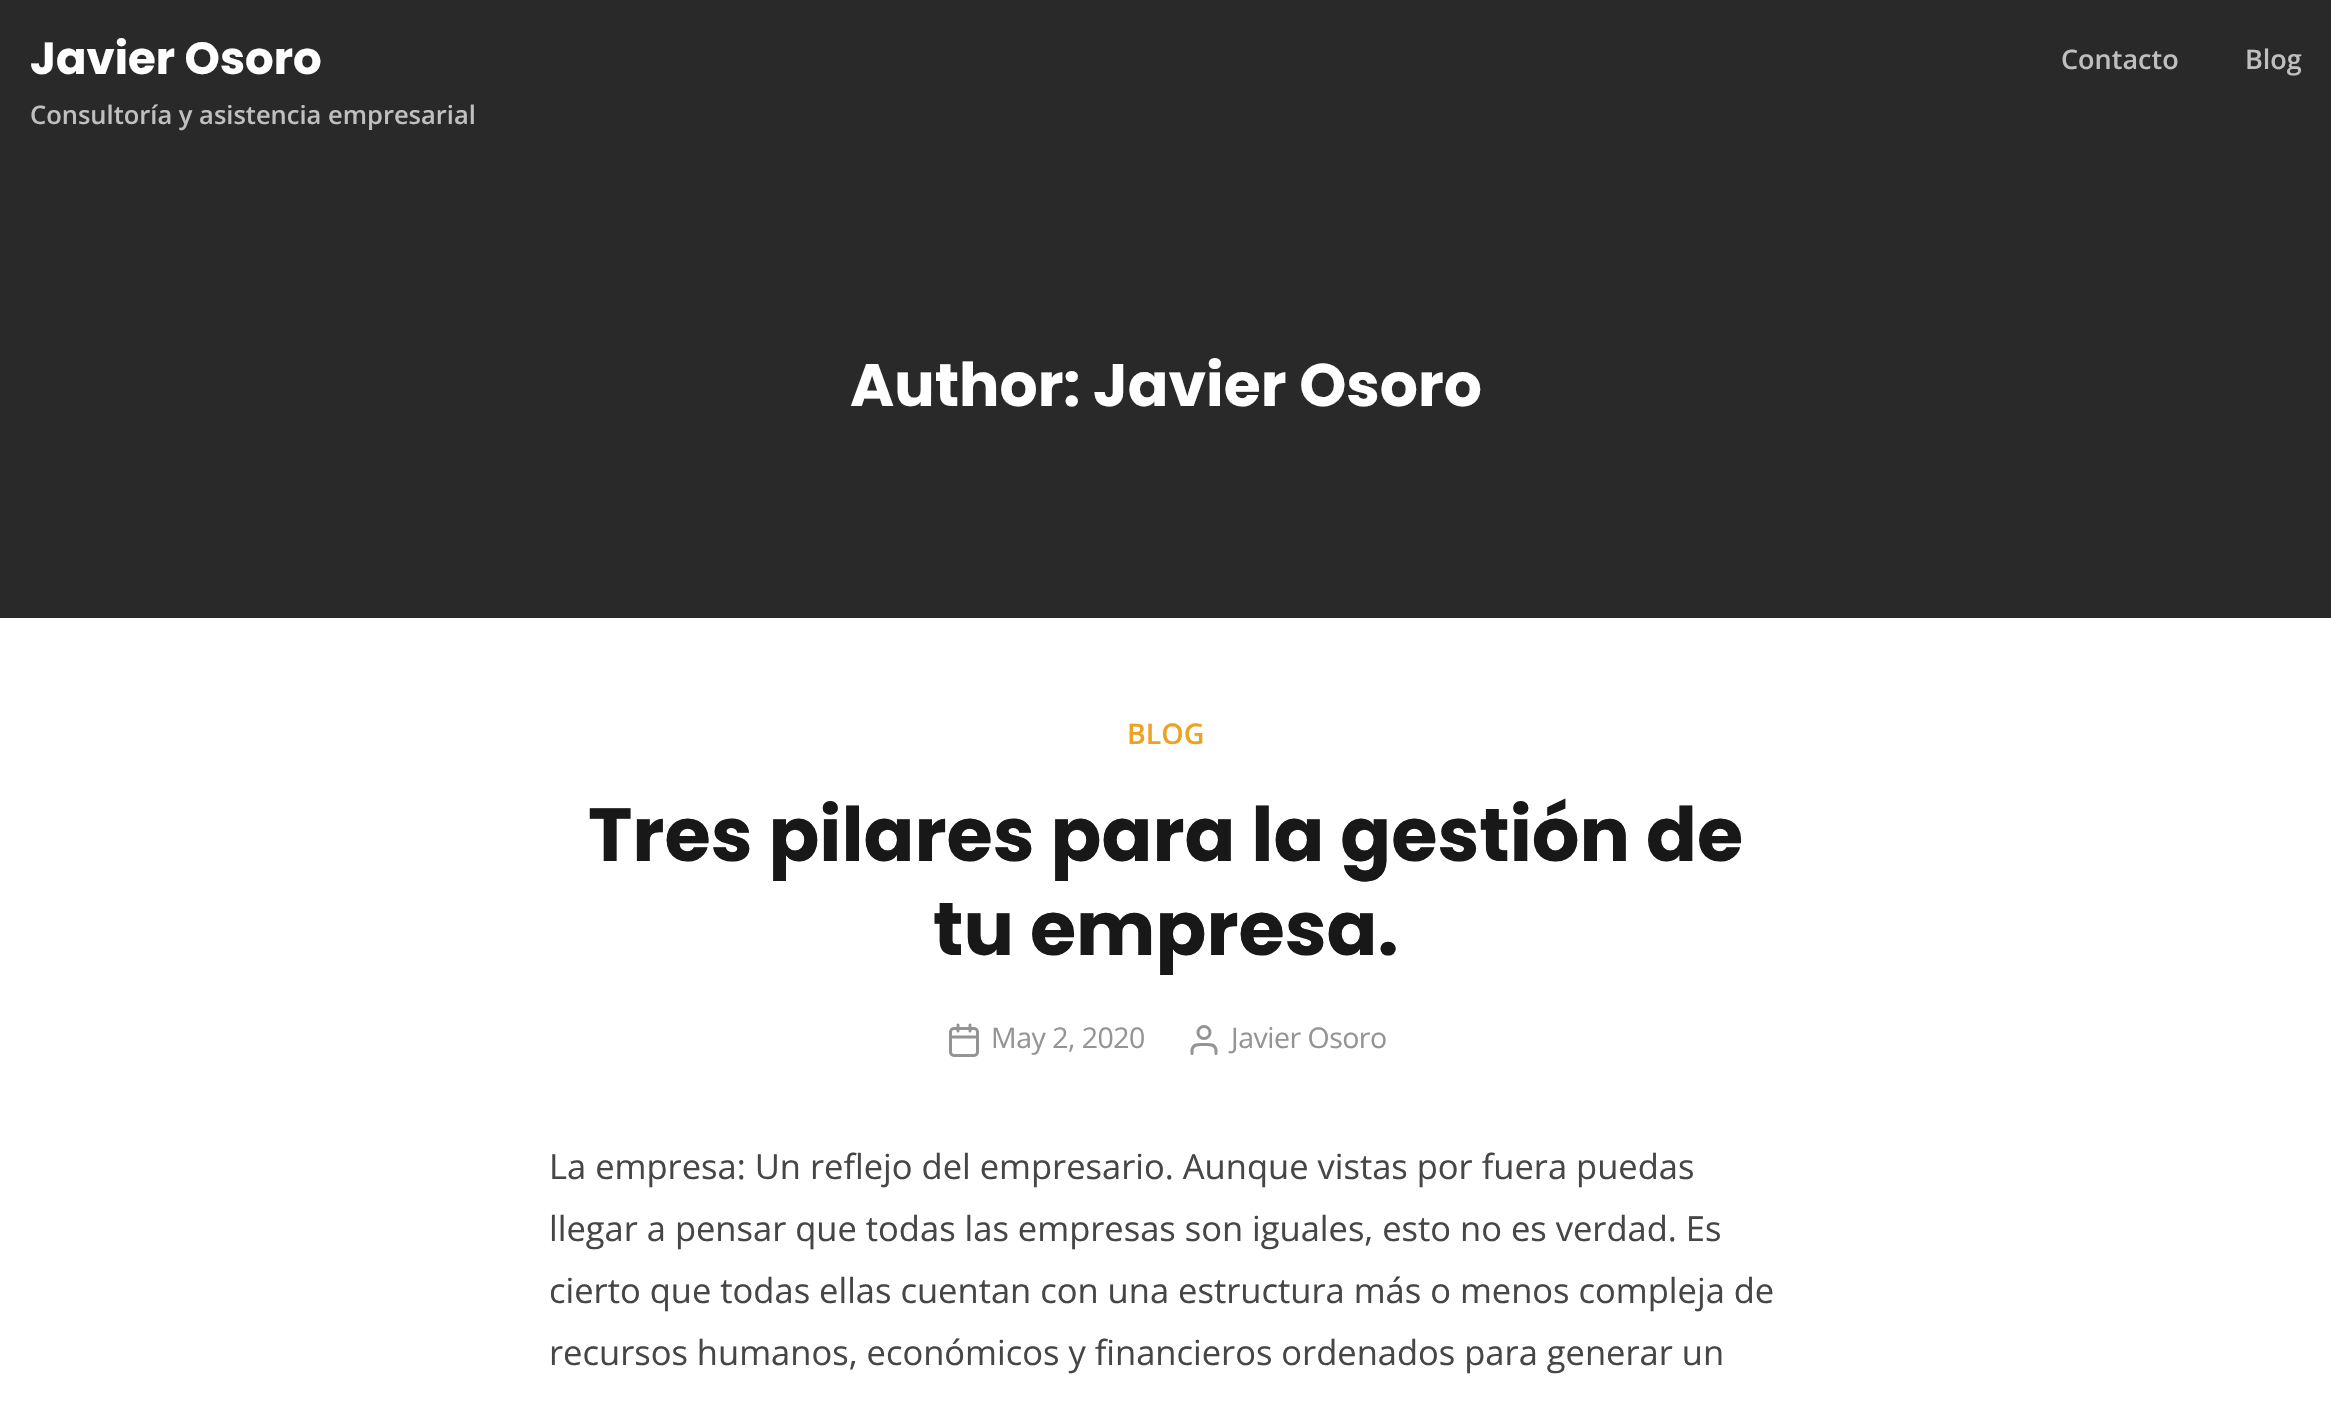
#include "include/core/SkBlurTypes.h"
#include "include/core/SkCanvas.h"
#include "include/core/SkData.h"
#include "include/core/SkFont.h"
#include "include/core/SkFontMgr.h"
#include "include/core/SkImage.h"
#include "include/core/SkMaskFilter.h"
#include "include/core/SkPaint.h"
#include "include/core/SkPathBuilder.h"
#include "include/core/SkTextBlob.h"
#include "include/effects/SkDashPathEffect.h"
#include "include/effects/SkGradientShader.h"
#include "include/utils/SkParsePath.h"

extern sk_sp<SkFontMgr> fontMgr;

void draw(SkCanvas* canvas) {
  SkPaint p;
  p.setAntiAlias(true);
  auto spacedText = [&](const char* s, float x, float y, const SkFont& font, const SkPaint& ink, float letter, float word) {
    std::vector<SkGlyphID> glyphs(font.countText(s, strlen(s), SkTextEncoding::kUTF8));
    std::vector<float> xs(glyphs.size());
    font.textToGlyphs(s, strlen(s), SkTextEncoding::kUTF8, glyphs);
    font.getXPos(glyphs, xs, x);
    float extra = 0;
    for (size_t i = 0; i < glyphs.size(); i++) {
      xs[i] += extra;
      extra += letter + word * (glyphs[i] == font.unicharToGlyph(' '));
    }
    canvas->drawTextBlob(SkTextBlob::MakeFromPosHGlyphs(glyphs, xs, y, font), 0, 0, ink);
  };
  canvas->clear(SK_ColorWHITE);
  p.setColor(SkColorSetRGB(41, 41, 41));
  canvas->drawRect(SkRect::MakeLTRB(0, 0, 2331, 618), p);
  p.setStyle(SkPaint::kStroke_Style);
  p.setStrokeWidth(3);
  p.setColor(SkColorSetRGB(148, 148, 148));
  canvas->drawRoundRect(SkRect::MakeLTRB(950.5f, 1028.5f, 977.5f, 1055.5f), 3.5f, 3.5f, p);
  p.setStrokeCap(SkPaint::kRound_Cap);
  p.setStrokeJoin(SkPaint::kRound_Join);
  canvas->drawPath(SkPathBuilder().moveTo(970, 1025).lineTo(970, 1031).moveTo(958, 1025).lineTo(958, 1031).moveTo(950.5f, 1037).lineTo(977.5f, 1037).detach(), p);
  canvas->drawPath(SkPathBuilder().moveTo(1216, 1053.5f).lineTo(1216, 1049.5f).cubicTo(1214.5f, 1043.5f, 1208.5f, 1044.5f, 1204, 1044.5f).cubicTo(1199.5f, 1044.5f, 1193.5f, 1043.5f, 1192, 1049.5f).lineTo(1192, 1053.5f).detach(), p);
  p.setStrokeCap(SkPaint::kButt_Cap);
  p.setStrokeJoin(SkPaint::kMiter_Join);
  canvas->drawCircle(1204, 1032.5f, 6, p);
  SkFont font1(fontMgr->matchFamilyStyle("Poppins", SkFontStyle::Bold()), 45);
  font1.setSubpixel(true);
  p.setStyle(SkPaint::kFill_Style);
  p.setColor(SK_ColorWHITE);
  canvas->drawString("Javier Osoro", 30, 74, font1, p);
  SkFont font2(fontMgr->matchFamilyStyle("Open Sans", SkFontStyle(600, SkFontStyle::kNormal_Width, SkFontStyle::kUpright_Slant)), 25.5f);
  font2.setSubpixel(true);
  p.setColor(SkColorSetRGB(191, 191, 191));
  canvas->drawString("Consultoría y asistencia empresarial", 30, 124, font2, p);
  SkFont font3(fontMgr->matchFamilyStyle("Open Sans", SkFontStyle(600, SkFontStyle::kNormal_Width, SkFontStyle::kUpright_Slant)), 27);
  font3.setSubpixel(true);
  canvas->drawString("Contacto", 2061, 69, font3, p);
  canvas->drawString("Blog", 2245, 69, font3, p);
  SkFont font4(fontMgr->matchFamilyStyle("Poppins", SkFontStyle::Bold()), 60);
  font4.setSubpixel(true);
  p.setColor(SK_ColorWHITE);
  canvas->drawString("Author: Javier Osoro", 850, 406, font4, p);
  SkFont font5(fontMgr->matchFamilyStyle("Open Sans", SkFontStyle(600, SkFontStyle::kNormal_Width, SkFontStyle::kUpright_Slant)), 28.5f);
  font5.setSubpixel(true);
  p.setColor(SkColorSetRGB(237, 163, 33));
  canvas->drawString("BLOG", 1127, 744, font5, p);
  SkFont font6(fontMgr->matchFamilyStyle("Poppins", SkFontStyle::Bold()), 75);
  font6.setSubpixel(true);
  p.setColor(SkColorSetRGB(24, 24, 24));
  canvas->drawString("Tres pilares para la gestión de", 588, 861, font6, p);
  canvas->drawString("tu empresa.", 933, 955, font6, p);
  SkFont font7(fontMgr->matchFamilyStyle("Open Sans", SkFontStyle::Normal()), 28.5f);
  font7.setSubpixel(true);
  p.setColor(SkColorSetRGB(148, 148, 148));
  spacedText("May 2, 2020", 991, 1048, font7, p, -0.5f, 0);
  spacedText("Javier Osoro", 1231, 1048, font7, p, -0.5f, 0);
  SkFont font8(fontMgr->matchFamilyStyle("Open Sans", SkFontStyle::Normal()), 34.5f);
  font8.setSubpixel(true);
  p.setColor(SkColorSetRGB(70, 70, 70));
  canvas->drawString("La empresa: Un reflejo del empresario. Aunque vistas por fuera puedas", 549, 1179, font8, p);
  canvas->drawString("llegar a pensar que todas las empresas son iguales, esto no es verdad. Es", 549, 1241, font8, p);
  canvas->drawString("cierto que todas ellas cuentan con una estructura más o menos compleja de", 549, 1303, font8, p);
  canvas->drawString("recursos humanos, económicos y financieros ordenados para generar un", 549, 1365, font8, p);
}
